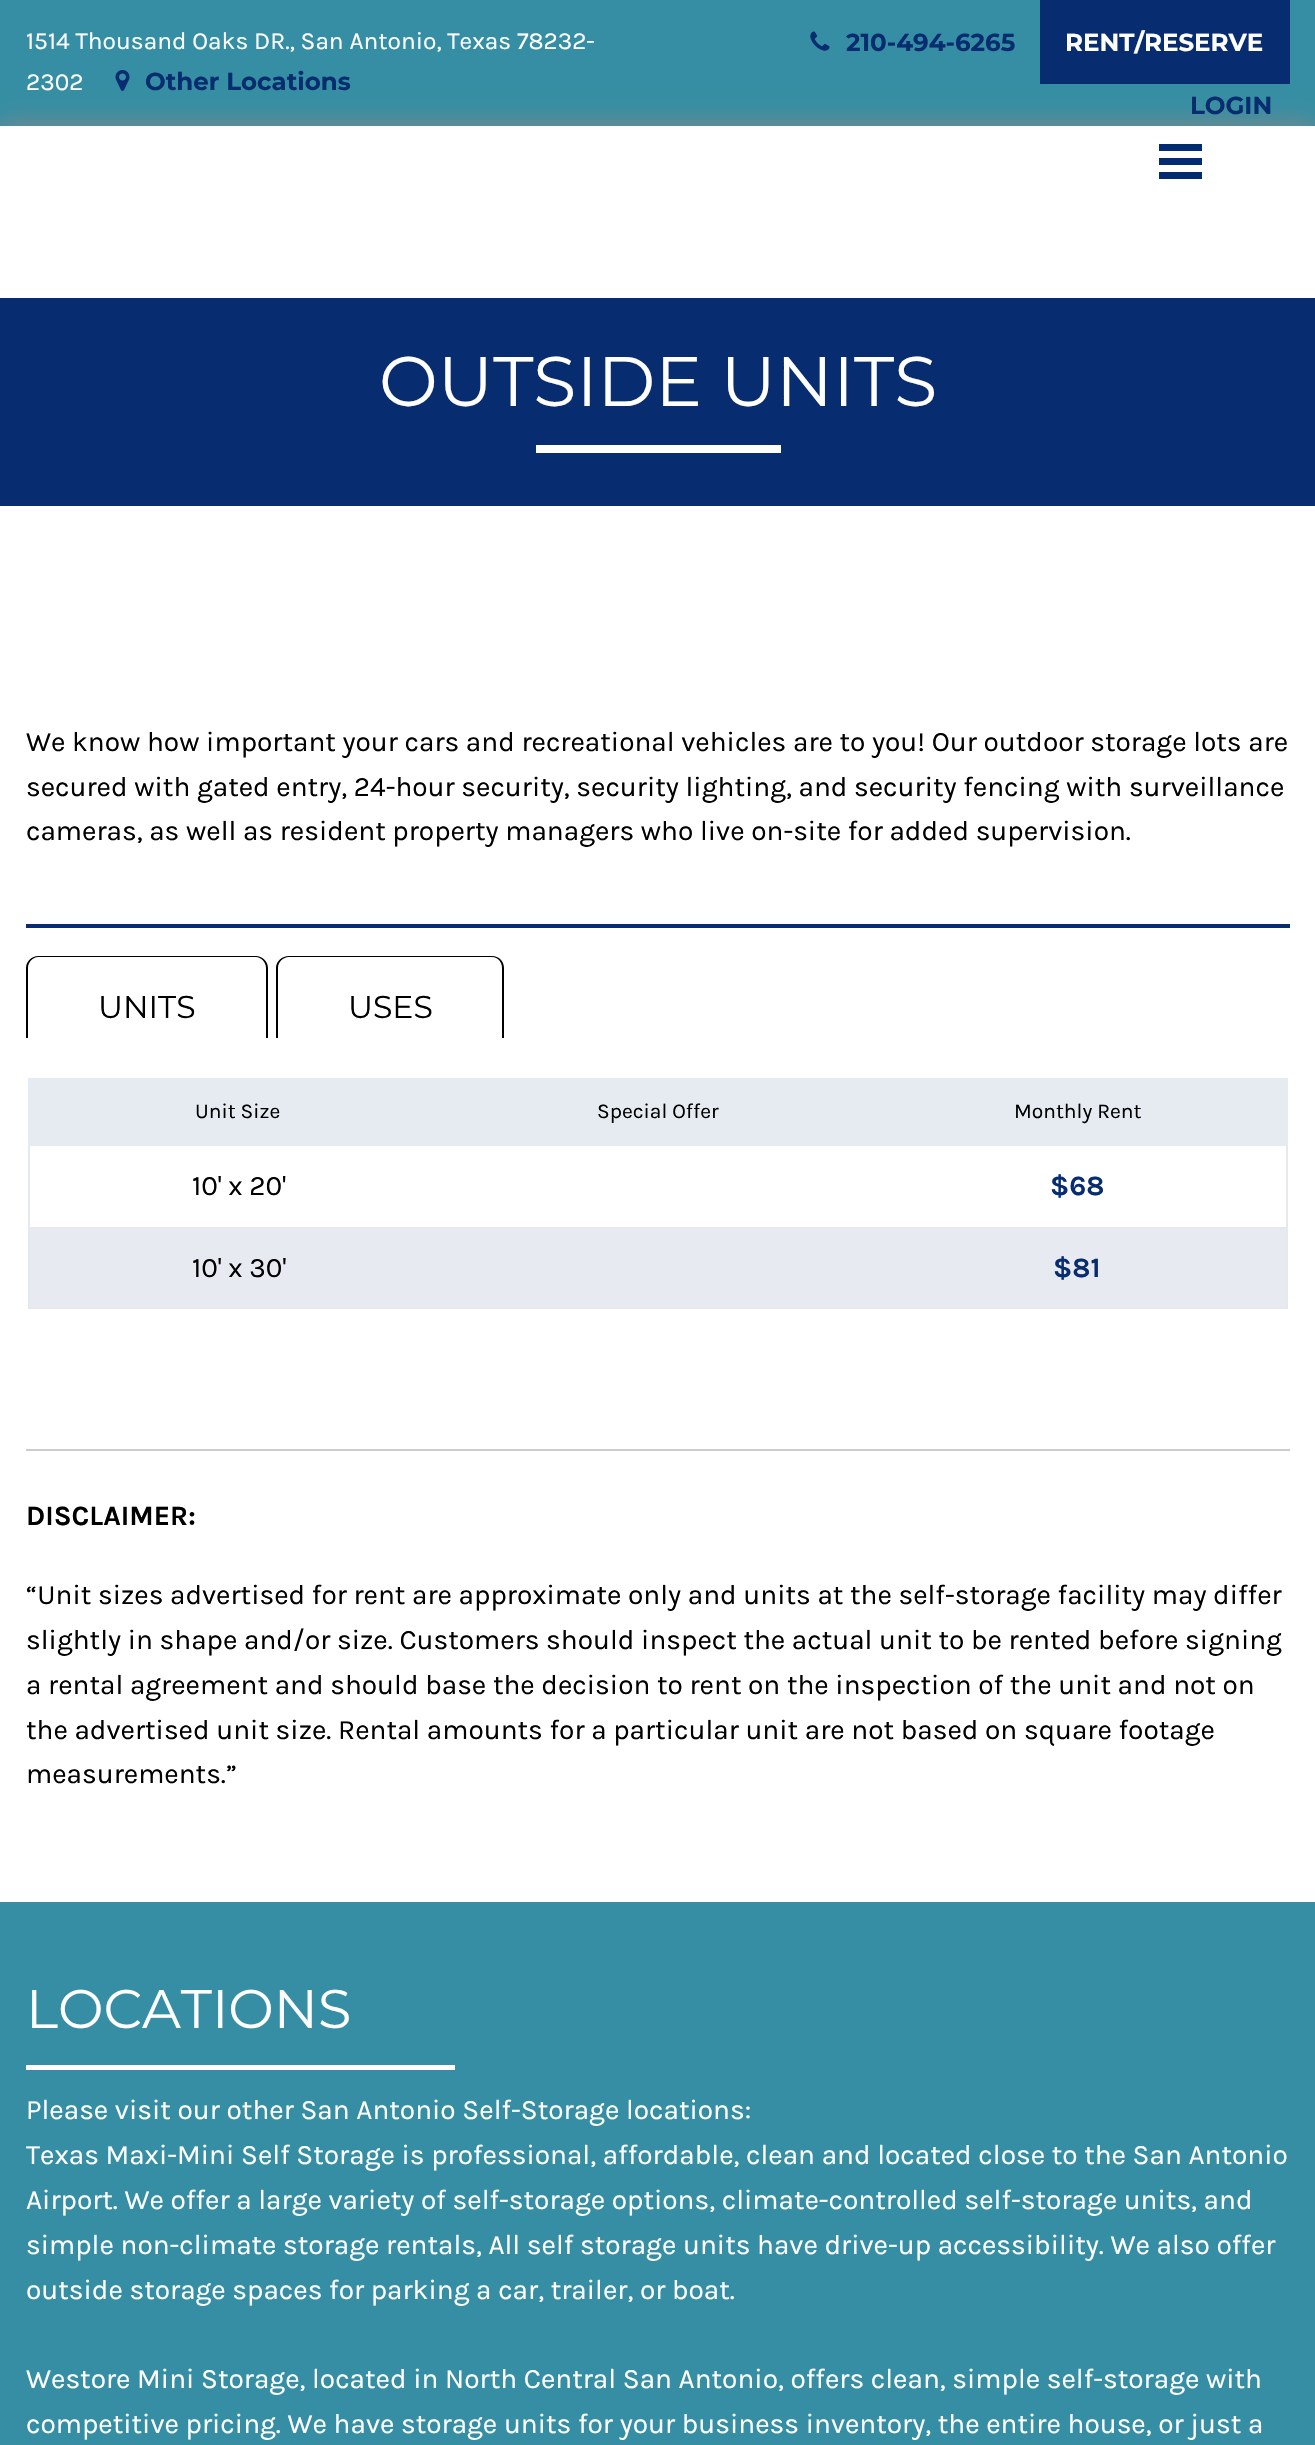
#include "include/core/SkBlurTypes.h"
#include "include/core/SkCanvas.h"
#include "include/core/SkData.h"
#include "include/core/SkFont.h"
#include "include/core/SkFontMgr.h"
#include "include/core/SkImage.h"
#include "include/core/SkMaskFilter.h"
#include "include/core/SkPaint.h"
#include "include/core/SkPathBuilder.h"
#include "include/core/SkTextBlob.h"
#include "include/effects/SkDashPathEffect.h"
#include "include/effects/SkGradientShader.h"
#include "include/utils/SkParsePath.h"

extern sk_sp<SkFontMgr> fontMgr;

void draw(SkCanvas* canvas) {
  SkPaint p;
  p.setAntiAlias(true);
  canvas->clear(SK_ColorWHITE);
  p.setColor(SkColorSetRGB(53, 142, 163));
  canvas->drawRect(SkRect::MakeLTRB(0, 0, 1315, 126), p);
  p.setColor(SkColorSetRGB(136, 136, 136));
  p.setMaskFilter(SkMaskFilter::MakeBlur(kNormal_SkBlurStyle, 13));
  canvas->drawRect(SkRect::MakeLTRB(0, 126, 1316, 298), p);
  p.setMaskFilter(nullptr);
  canvas->drawImageRect(SkImages::DeferredFromEncodedData(SkData::MakeFromFileName("images/1.png")), SkRect::MakeLTRB(115, 70, 130, 91), SkSamplingOptions());
  canvas->drawImageRect(SkImages::DeferredFromEncodedData(SkData::MakeFromFileName("images/2.png")), SkRect::MakeLTRB(810, 31, 830, 51), SkSamplingOptions());
  p.setColor(SkColorSetRGB(7, 44, 111));
  canvas->drawRect(SkRect::MakeLTRB(1040, 0, 1290, 84), p);
  p.setColor(SK_ColorWHITE);
  canvas->drawRect(SkRect::MakeLTRB(0, 126, 1315, 298), p);
  p.setColor(SkColorSetRGB(3, 43, 113));
  canvas->drawRect(SkRect::MakeLTRB(1159, 158, 1202, 165), p);
  canvas->drawRect(SkRect::MakeLTRB(1159, 144, 1202, 151), p);
  canvas->drawRect(SkRect::MakeLTRB(1159, 172, 1202, 179), p);
  p.setColor(SkColorSetRGB(7, 44, 111));
  canvas->drawRect(SkRect::MakeLTRB(0, 298, 1315, 506), p);
  p.setColor(SK_ColorWHITE);
  canvas->drawRect(SkRect::MakeLTRB(536, 445, 781, 453), p);
  p.setColor(SkColorSetRGB(7, 44, 111));
  canvas->drawRect(SkRect::MakeLTRB(26, 924, 1290, 928), p);
  p.setColor(SK_ColorBLACK);
  canvas->drawPath(SkPathBuilder(SkPathFillType::kEvenOdd).moveTo(38, 956).lineTo(256, 956).cubicTo(262, 956, 268, 961, 268, 968).lineTo(268, 1038).lineTo(26, 1038).lineTo(26, 968).cubicTo(26, 961, 32, 956, 38, 956).close().moveTo(38, 957).lineTo(256, 957).cubicTo(261, 957, 266, 962, 266, 968).lineTo(266, 1038).lineTo(28, 1038).lineTo(28, 968).cubicTo(28, 962, 33, 957, 38, 957).close().detach(), p);
  canvas->drawPath(SkPathBuilder(SkPathFillType::kEvenOdd).moveTo(289, 956).lineTo(492, 956).cubicTo(499, 956, 504, 961, 504, 968).lineTo(504, 1038).lineTo(276, 1038).lineTo(276, 968).cubicTo(276, 961, 282, 956, 289, 956).close().moveTo(289, 957).lineTo(492, 957).cubicTo(498, 957, 502, 962, 502, 968).lineTo(502, 1038).lineTo(278, 1038).lineTo(278, 968).cubicTo(278, 962, 283, 957, 289, 957).close().detach(), p);
  p.setColor(SkColorSetRGB(230, 234, 241));
  canvas->drawRect(SkRect::MakeLTRB(28, 1078, 1288, 1146), p);
  p.setColor(SkColorSetRGB(229, 233, 239));
  canvas->drawRect(SkRect::MakeLTRB(1286, 1146, 1288, 1309), p);
  canvas->drawRect(SkRect::MakeLTRB(28, 1227, 1288, 1229), p);
  canvas->drawRect(SkRect::MakeLTRB(28, 1146, 30, 1229), p);
  p.setColor(SkColorSetRGB(231, 234, 241));
  canvas->drawRect(SkRect::MakeLTRB(30, 1229, 1286, 1307), p);
  p.setColor(SkColorSetRGB(229, 233, 239));
  canvas->drawRect(SkRect::MakeLTRB(28, 1307, 1288, 1309), p);
  canvas->drawRect(SkRect::MakeLTRB(28, 1229, 30, 1309), p);
  p.setColor(SkColorSetRGB(204, 204, 204));
  canvas->drawRect(SkRect::MakeLTRB(26, 1449, 1290, 1451), p);
  p.setColor(SkColorSetRGB(53, 142, 163));
  canvas->drawRect(SkRect::MakeLTRB(0, 1902, 1315, 2445), p);
  p.setColor(SK_ColorWHITE);
  canvas->drawRect(SkRect::MakeLTRB(26, 2065, 455, 2070), p);
  SkFont font1(fontMgr->matchFamilyStyle("Karla", SkFontStyle::Normal()), 24.5f);
  font1.setSubpixel(true);
  canvas->drawString("1514 Thousand Oaks DR., San Antonio, Texas 78232-", 26, 49, font1, p);
  canvas->drawString("2302", 26, 90, font1, p);
  SkFont font2(fontMgr->matchFamilyStyle("Montserrat", SkFontStyle::Bold()), 24.5f);
  font2.setSubpixel(true);
  p.setColor(SkColorSetRGB(7, 44, 111));
  canvas->drawString("Other Locations", 145, 90, font2, p);
  canvas->drawString("210-494-6265", 846, 51, font2, p);
  p.setColor(SK_ColorWHITE);
  canvas->drawString("RENT/RESERVE", 1065, 51, font2, p);
  p.setColor(SkColorSetRGB(7, 44, 111));
  canvas->drawString("LOGIN", 1190, 114, font2, p);
  SkFont font3(fontMgr->matchFamilyStyle("Montserrat", SkFontStyle::Normal()), 70);
  font3.setSubpixel(true);
  p.setColor(SK_ColorWHITE);
  canvas->drawString("OUTSIDE UNITS", 379, 406, font3, p);
  SkFont font4(fontMgr->matchFamilyStyle("Karla", SkFontStyle::Normal()), 28);
  font4.setSubpixel(true);
  p.setColor(SK_ColorBLACK);
  canvas->drawString("We know how important your cars and recreational vehicles are to you! Our outdoor storage lots are", 26, 751, font4, p);
  canvas->drawString("secured with gated entry, 24-hour security, security lighting, and security fencing with surveillance", 26, 796, font4, p);
  canvas->drawString("cameras, as well as resident property managers who live on-site for added supervision.", 26, 840, font4, p);
  SkFont font5(fontMgr->matchFamilyStyle("Montserrat", SkFontStyle::Normal()), 31.5f);
  font5.setSubpixel(true);
  canvas->drawString("UNITS", 98, 1018, font5, p);
  canvas->drawString("USES", 348, 1018, font5, p);
  SkFont font6(fontMgr->matchFamilyStyle("Karla", SkFontStyle::Normal()), 21);
  font6.setSubpixel(true);
  canvas->drawString("Unit Size", 195, 1118, font6, p);
  canvas->drawString("Special Offer", 597, 1118, font6, p);
  canvas->drawString("Monthly Rent", 1014, 1118, font6, p);
  canvas->drawString("10' x 20'", 192, 1195, font4, p);
  SkFont font7(fontMgr->matchFamilyStyle("Karla", SkFontStyle::Bold()), 28);
  font7.setSubpixel(true);
  p.setColor(SkColorSetRGB(7, 44, 111));
  canvas->drawString("$68", 1050, 1195, font7, p);
  p.setColor(SK_ColorBLACK);
  canvas->drawString("10' x 30'", 192, 1277, font4, p);
  p.setColor(SkColorSetRGB(7, 44, 111));
  canvas->drawString("$81", 1053, 1277, font7, p);
  p.setColor(SK_ColorBLACK);
  canvas->drawString("DISCLAIMER:", 26, 1525, font7, p);
  canvas->drawString("“Unit sizes advertised for rent are approximate only and units at the self-storage facility may differ", 26, 1604, font4, p);
  canvas->drawString("slightly in shape and/or size. Customers should inspect the actual unit to be rented before signing", 26, 1649, font4, p);
  canvas->drawString("a rental agreement and should base the decision to rent on the inspection of the unit and not on", 26, 1694, font4, p);
  canvas->drawString("the advertised unit size. Rental amounts for a particular unit are not based on square footage", 26, 1739, font4, p);
  canvas->drawString("measurements.”", 26, 1783, font4, p);
  SkFont font8(fontMgr->matchFamilyStyle("Montserrat", SkFontStyle::Normal()), 54.25f);
  font8.setSubpixel(true);
  p.setColor(SK_ColorWHITE);
  canvas->drawString("LOCATIONS", 26, 2028, font8, p);
  canvas->drawString("Please visit our other San Antonio Self-Storage locations:", 26, 2119, font4, p);
  canvas->drawString("Texas Maxi-Mini Self Storage is professional, affordable, clean and located close to the San Antonio", 26, 2164, font4, p);
  canvas->drawString("Airport. We offer a large variety of self-storage options, climate-controlled self-storage units, and", 26, 2209, font4, p);
  canvas->drawString("simple non-climate storage rentals, All self storage units have drive-up accessibility. We also offer", 26, 2254, font4, p);
  canvas->drawString("outside storage spaces for parking a car, trailer, or boat.", 26, 2299, font4, p);
  canvas->drawString("Westore Mini Storage, located in North Central San Antonio, offers clean, simple self-storage with", 26, 2388, font4, p);
  canvas->drawString("competitive pricing. We have storage units for your business inventory, the entire house, or just a", 26, 2433, font4, p);
}
